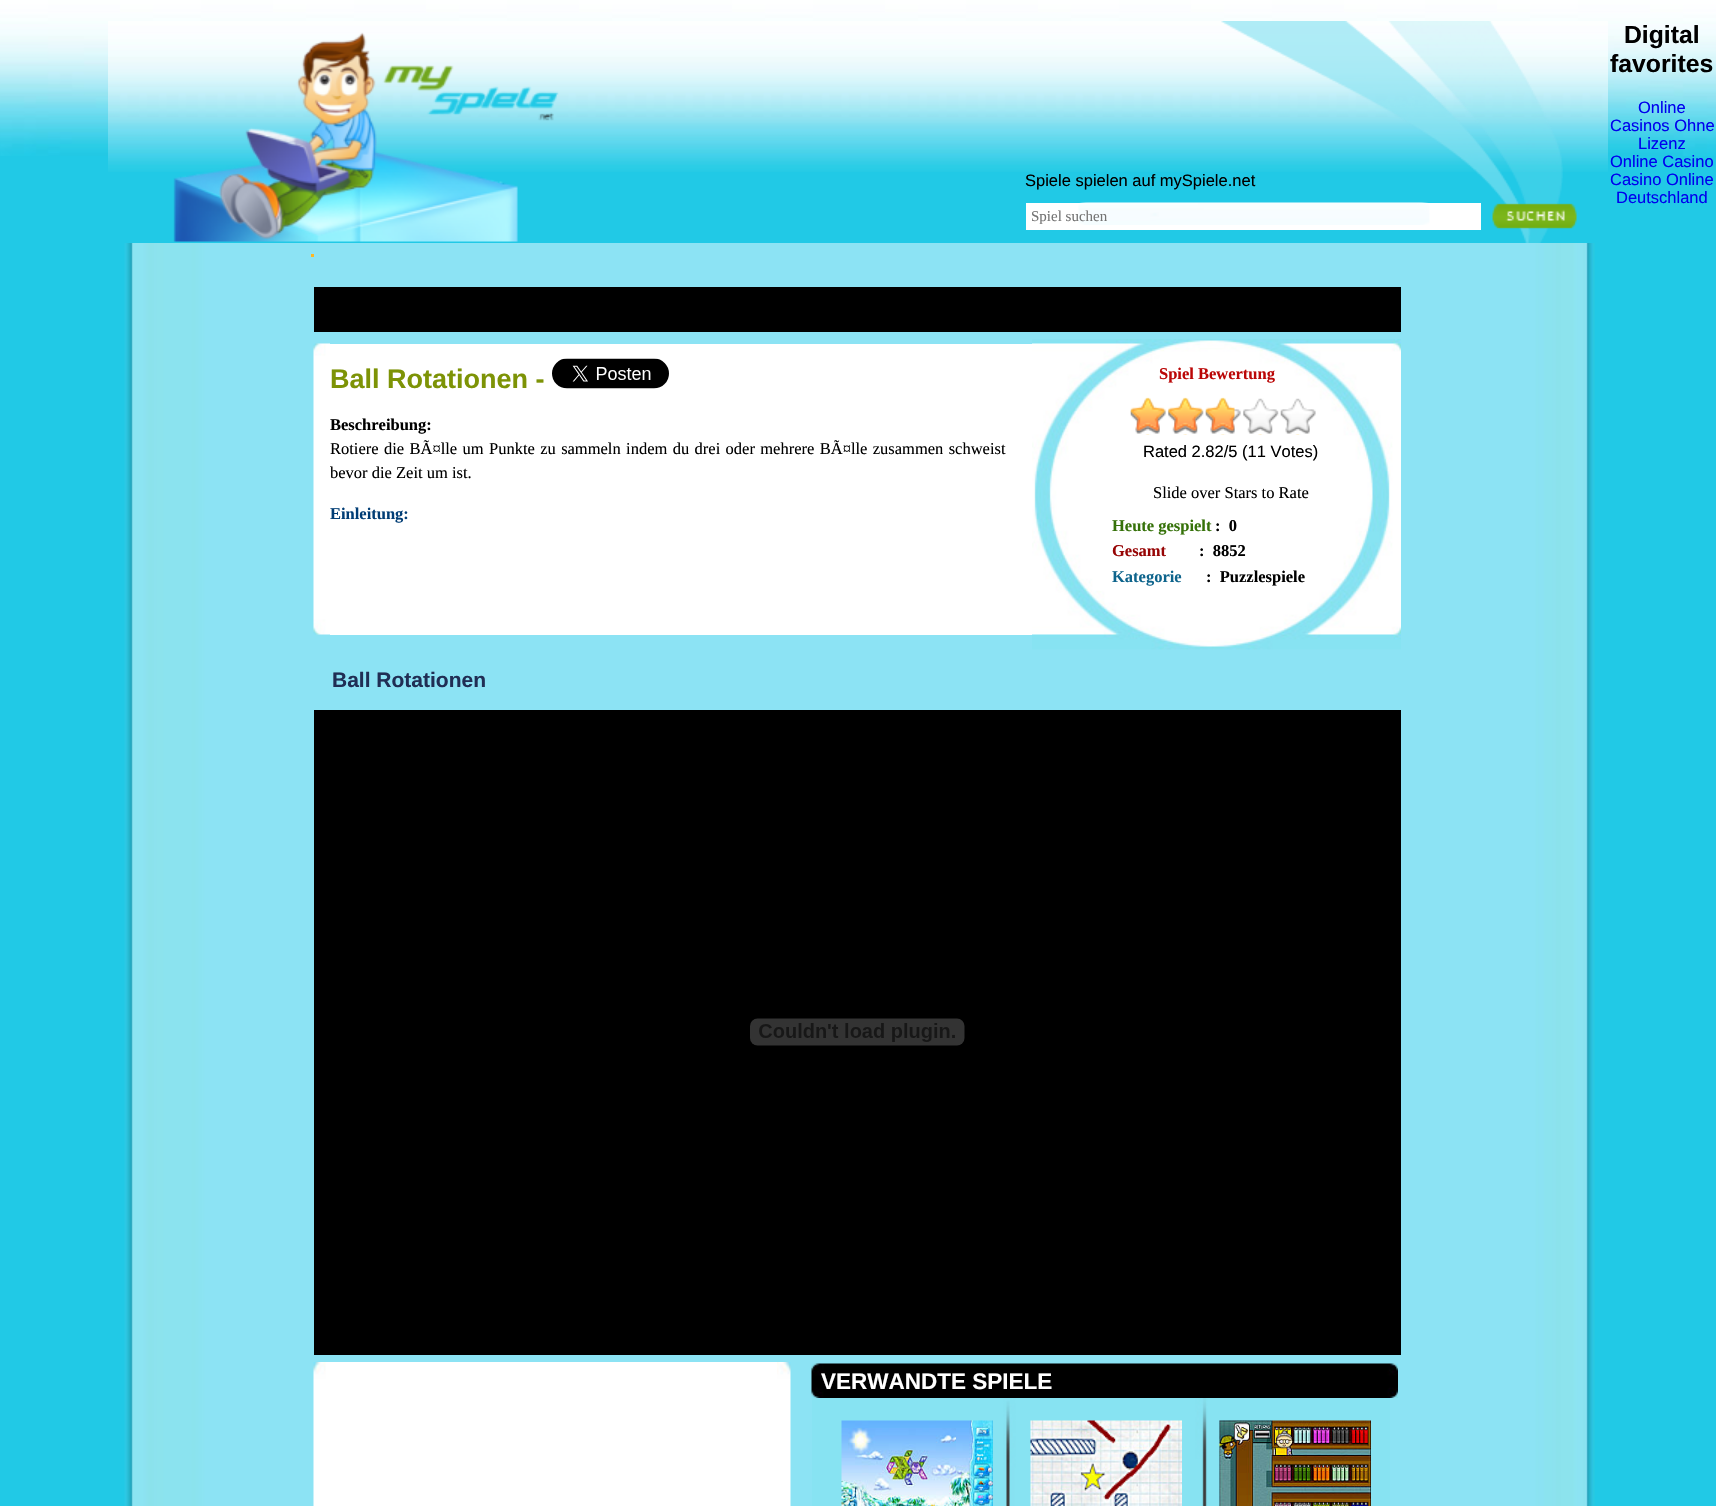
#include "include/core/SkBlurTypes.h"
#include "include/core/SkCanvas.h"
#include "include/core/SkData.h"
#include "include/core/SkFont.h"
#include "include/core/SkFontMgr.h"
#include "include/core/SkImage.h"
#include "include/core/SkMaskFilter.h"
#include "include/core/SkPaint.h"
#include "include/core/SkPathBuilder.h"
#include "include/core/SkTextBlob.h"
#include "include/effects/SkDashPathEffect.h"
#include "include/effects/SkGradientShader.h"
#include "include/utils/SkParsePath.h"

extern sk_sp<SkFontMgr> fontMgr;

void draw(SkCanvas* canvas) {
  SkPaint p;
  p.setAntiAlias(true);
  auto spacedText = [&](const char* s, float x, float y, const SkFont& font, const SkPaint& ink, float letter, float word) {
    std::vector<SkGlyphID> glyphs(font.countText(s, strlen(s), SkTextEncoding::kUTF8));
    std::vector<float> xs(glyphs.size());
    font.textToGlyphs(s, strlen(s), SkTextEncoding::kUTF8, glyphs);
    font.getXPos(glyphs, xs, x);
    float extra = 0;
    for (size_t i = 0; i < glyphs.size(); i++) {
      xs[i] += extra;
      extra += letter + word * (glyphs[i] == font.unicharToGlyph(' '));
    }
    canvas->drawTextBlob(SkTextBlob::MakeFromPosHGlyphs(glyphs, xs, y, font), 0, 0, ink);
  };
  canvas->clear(SkColorSetRGB(33, 201, 230));
  canvas->drawImageRect(SkImages::DeferredFromEncodedData(SkData::MakeFromFileName("images/1.png")), SkRect::MakeLTRB(0, 0, 1716, 156), SkSamplingOptions());
  canvas->drawImageRect(SkImages::DeferredFromEncodedData(SkData::MakeFromFileName("images/2.png")), SkRect::MakeLTRB(108, 21, 1608, 172), SkSamplingOptions());
  canvas->drawImageRect(SkImages::DeferredFromEncodedData(SkData::MakeFromFileName("images/3.png")), SkRect::MakeLTRB(173, 151, 518, 242), SkSamplingOptions());
  canvas->drawImageRect(SkImages::DeferredFromEncodedData(SkData::MakeFromFileName("images/4.png")), SkRect::MakeLTRB(219, 32, 559, 239), SkSamplingOptions());
  canvas->drawImageRect(SkImages::DeferredFromEncodedData(SkData::MakeFromFileName("images/5.png")), SkRect::MakeLTRB(1221, 21, 1563, 243), SkSamplingOptions());
  p.setColor(SK_ColorWHITE);
  canvas->drawRect(SkRect::MakeLTRB(1026, 203, 1481, 230), p);
  canvas->drawImageRect(SkImages::DeferredFromEncodedData(SkData::MakeFromFileName("images/6.png")), SkRect::MakeLTRB(1078, 202, 1430, 225), SkSamplingOptions());
  canvas->drawImageRect(SkImages::DeferredFromEncodedData(SkData::MakeFromFileName("images/7.png")), SkRect::MakeLTRB(1492, 203, 1577, 229), SkSamplingOptions());
  canvas->drawImageRect(SkImages::DeferredFromEncodedData(SkData::MakeFromFileName("images/8.png")), SkRect::MakeLTRB(124, 243, 1595, 1506), SkSamplingOptions());
  p.setColor(SkColorSetRGB(255, 183, 34));
  canvas->drawRect(SkRect::MakeLTRB(311, 254, 314, 257), p);
  p.setColor(SK_ColorBLACK);
  canvas->drawRect(SkRect::MakeLTRB(314, 287, 1401, 332), p);
  canvas->drawImageRect(SkImages::DeferredFromEncodedData(SkData::MakeFromFileName("images/9.png")), SkRect::MakeLTRB(313, 343, 330, 635), SkSamplingOptions());
  p.setColor(SK_ColorWHITE);
  canvas->drawRect(SkRect::MakeLTRB(330, 344, 1032, 635), p);
  canvas->drawImageRect(SkImages::DeferredFromEncodedData(SkData::MakeFromFileName("images/10.png")), SkRect::MakeLTRB(552, 358, 669, 389), SkSamplingOptions());
  canvas->drawImageRect(SkImages::DeferredFromEncodedData(SkData::MakeFromFileName("images/11.png")), SkRect::MakeLTRB(1032, 339, 1401, 650), SkSamplingOptions());
  canvas->drawImageRect(SkImages::DeferredFromEncodedData(SkData::MakeFromFileName("images/12.png")), SkRect::MakeLTRB(1130, 398, 1316, 435), SkSamplingOptions());
  canvas->drawImageRect(SkImages::DeferredFromEncodedData(SkData::MakeFromFileName("images/13.png")), SkRect::MakeLTRB(1130, 398, 1316, 435), SkSamplingOptions());
  canvas->drawImageRect(SkImages::DeferredFromEncodedData(SkData::MakeFromFileName("images/14.png")), SkRect::MakeLTRB(1130, 397, 1235, 433), SkSamplingOptions());
  p.setColor(SK_ColorBLACK);
  canvas->drawRect(SkRect::MakeLTRB(314, 710, 1401, 1355), p);
  canvas->drawImageRect(SkImages::DeferredFromEncodedData(SkData::MakeFromFileName("images/15.png")), SkRect::MakeLTRB(750, 1018, 965, 1046), SkSamplingOptions());
  canvas->drawImageRect(SkImages::DeferredFromEncodedData(SkData::MakeFromFileName("images/16.png")), SkRect::MakeLTRB(313, 1362, 327, 1506), SkSamplingOptions());
  p.setColor(SK_ColorWHITE);
  canvas->drawRect(SkRect::MakeLTRB(327, 1362, 777, 1506), p);
  canvas->drawImageRect(SkImages::DeferredFromEncodedData(SkData::MakeFromFileName("images/17.png")), SkRect::MakeLTRB(777, 1362, 791, 1506), SkSamplingOptions());
  canvas->drawImageRect(SkImages::DeferredFromEncodedData(SkData::MakeFromFileName("images/18.png")), SkRect::MakeLTRB(811, 1363, 1398, 1398), SkSamplingOptions());
  canvas->drawImageRect(SkImages::DeferredFromEncodedData(SkData::MakeFromFileName("images/19.png")), SkRect::MakeLTRB(812, 1398, 1390, 1506), SkSamplingOptions());
  canvas->drawImageRect(SkImages::DeferredFromEncodedData(SkData::MakeFromFileName("images/20.png")), SkRect::MakeLTRB(841, 1420, 993, 1506), SkSamplingOptions());
  canvas->drawImageRect(SkImages::DeferredFromEncodedData(SkData::MakeFromFileName("images/21.png")), SkRect::MakeLTRB(1030, 1420, 1182, 1506), SkSamplingOptions());
  canvas->drawImageRect(SkImages::DeferredFromEncodedData(SkData::MakeFromFileName("images/22.png")), SkRect::MakeLTRB(1219, 1420, 1371, 1506), SkSamplingOptions());
  SkFont font1(fontMgr->matchFamilyStyle("Liberation Sans", SkFontStyle::Bold()), 24.75f);
  font1.setSubpixel(true);
  p.setColor(SK_ColorBLACK);
  canvas->drawString("Digital", 1624, 43, font1, p);
  canvas->drawString("favorites", 1610, 72, font1, p);
  SkFont font2(fontMgr->matchFamilyStyle("Liberation Sans", SkFontStyle::Normal()), 16.5f);
  font2.setSubpixel(true);
  p.setColor(SkColorSetRGB(0, 0, 238));
  canvas->drawString("Online", 1638, 113, font2, p);
  canvas->drawString("Casinos Ohne", 1610, 131, font2, p);
  canvas->drawString("Lizenz", 1638, 149, font2, p);
  canvas->drawString("Online Casino", 1610, 167, font2, p);
  canvas->drawString("Casino Online", 1610, 185, font2, p);
  canvas->drawString("Deutschland", 1616, 203, font2, p);
  p.setColor(SK_ColorBLACK);
  canvas->drawString("Spiele spielen auf mySpiele.net", 1025, 186, font2, p);
  canvas->save();
  canvas->clipRect(SkRect::MakeLTRB(1031, 207, 1476, 224));
  SkFont font3(fontMgr->matchFamilyStyle("Liberation Serif", SkFontStyle::Normal()), 15);
  font3.setSubpixel(true);
  p.setColor(SkColorSetRGB(116, 116, 116));
  canvas->drawString("Spiel suchen", 1031, 221, font3, p);
  canvas->restore();
  SkFont font4(fontMgr->matchFamilyStyle("Liberation Sans", SkFontStyle::Bold()), 27);
  font4.setSubpixel(true);
  p.setColor(SkColorSetRGB(125, 147, 6));
  canvas->drawString("Ball Rotationen -", 330, 388, font4, p);
  SkFont font5(fontMgr->matchFamilyStyle("Liberation Serif", SkFontStyle::Bold()), 16.5f);
  font5.setSubpixel(true);
  p.setColor(SK_ColorBLACK);
  canvas->drawString("Beschreibung:", 330, 430, font5, p);
  SkFont font6(fontMgr->matchFamilyStyle("Liberation Serif", SkFontStyle::Normal()), 16.5f);
  font6.setSubpixel(true);
  spacedText("Rotiere die BÃ¤lle um Punkte zu sammeln indem du drei oder mehrere BÃ¤lle zusammen schweist", 330, 454, font6, p, 0, 1.25f);
  canvas->drawString("bevor die Zeit um ist.", 330, 478, font6, p);
  p.setColor(SkColorSetRGB(1, 61, 117));
  canvas->drawString("Einleitung:", 330, 519, font5, p);
  p.setColor(SkColorSetRGB(187, 7, 7));
  canvas->drawString("Spiel Bewertung", 1159, 379, font5, p);
  p.setColor(SK_ColorBLACK);
  canvas->drawString("Rated 2.82/5 (11 Votes)", 1143, 457, font2, p);
  canvas->drawString("Slide over Stars to Rate", 1153, 498, font6, p);
  p.setColor(SkColorSetRGB(54, 114, 10));
  canvas->drawString("Heute gespielt", 1112, 531, font5, p);
  p.setColor(SK_ColorBLACK);
  canvas->drawString(":  0", 1215, 531, font5, p);
  p.setColor(SkColorSetRGB(151, 5, 5));
  canvas->drawString("Gesamt", 1112, 556, font5, p);
  p.setColor(SK_ColorBLACK);
  canvas->drawString(":  8852", 1199, 556, font5, p);
  p.setColor(SkColorSetRGB(14, 100, 140));
  canvas->drawString("Kategorie", 1112, 582, font5, p);
  p.setColor(SK_ColorBLACK);
  canvas->drawString(":  Puzzlespiele", 1206, 582, font5, p);
  SkFont font7(fontMgr->matchFamilyStyle("Liberation Sans", SkFontStyle::Bold()), 21);
  font7.setSubpixel(true);
  p.setColor(SkColorSetRGB(32, 46, 84));
  canvas->drawString("Ball Rotationen", 332, 687, font7, p);
  SkFont font8(fontMgr->matchFamilyStyle("Liberation Sans", SkFontStyle::Bold()), 22.5f);
  font8.setSubpixel(true);
  p.setColor(SK_ColorWHITE);
  canvas->drawString("VERWANDTE SPIELE", 821, 1389, font8, p);
}
